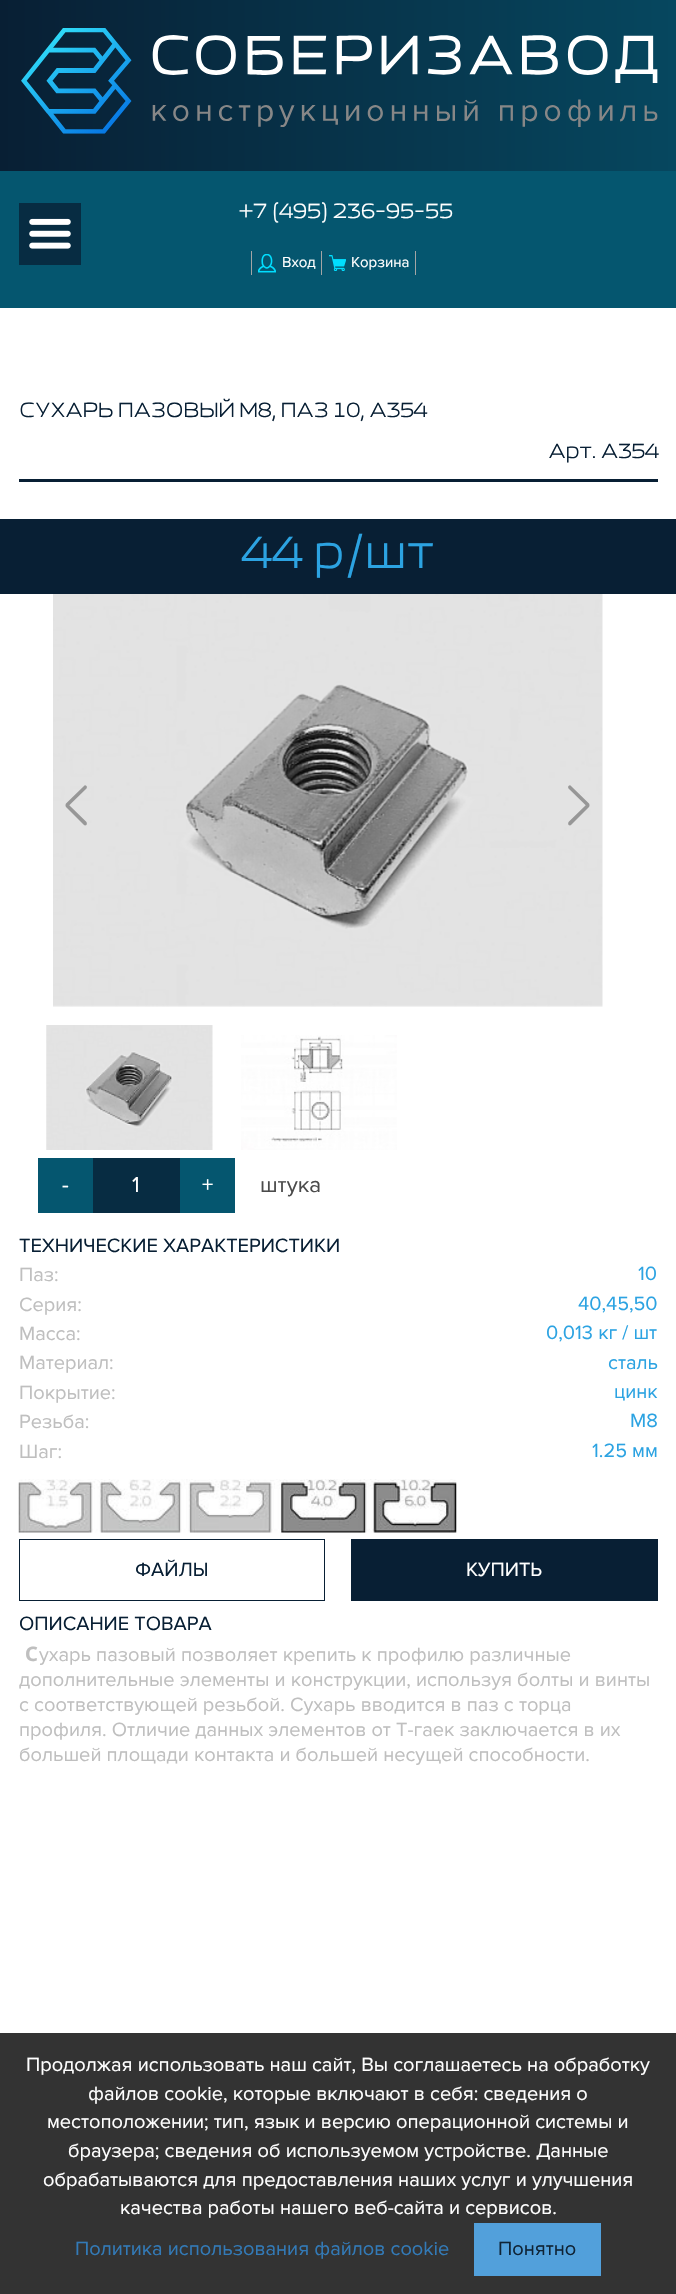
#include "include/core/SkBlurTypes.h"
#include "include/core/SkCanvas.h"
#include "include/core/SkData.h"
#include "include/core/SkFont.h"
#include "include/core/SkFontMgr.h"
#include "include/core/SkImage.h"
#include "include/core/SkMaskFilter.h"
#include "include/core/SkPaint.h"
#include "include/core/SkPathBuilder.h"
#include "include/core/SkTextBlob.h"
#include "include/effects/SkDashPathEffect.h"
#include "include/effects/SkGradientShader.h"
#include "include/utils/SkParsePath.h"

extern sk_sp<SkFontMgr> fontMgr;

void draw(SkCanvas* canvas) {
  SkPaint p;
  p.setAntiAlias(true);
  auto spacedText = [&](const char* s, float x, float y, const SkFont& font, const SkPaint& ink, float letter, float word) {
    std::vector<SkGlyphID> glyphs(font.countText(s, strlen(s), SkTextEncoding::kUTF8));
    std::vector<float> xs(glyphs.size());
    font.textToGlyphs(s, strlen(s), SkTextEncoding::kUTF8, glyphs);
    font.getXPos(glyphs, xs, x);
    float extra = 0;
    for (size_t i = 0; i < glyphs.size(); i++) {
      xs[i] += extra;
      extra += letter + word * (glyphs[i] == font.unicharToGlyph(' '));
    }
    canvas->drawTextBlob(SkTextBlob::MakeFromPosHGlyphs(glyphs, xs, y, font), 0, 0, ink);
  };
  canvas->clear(SK_ColorWHITE);
  {
    const SkColor colors[] = {SkColorSetRGB(8, 31, 52), SkColorSetRGB(6, 71, 95)};
    const float stops[] = {0, 1};
    const SkPoint ends[] = {{0, 149}, {676, 149}};
    p.setShader(SkGradientShader::MakeLinear(ends, colors, stops, 2, SkTileMode::kClamp));
    p.setAlpha(255);
  }
  canvas->drawRect(SkRect::MakeLTRB(0, 0, 676, 171), p);
  canvas->drawImageRect(SkImages::DeferredFromEncodedData(SkData::MakeFromFileName("images/1.png")), SkRect::MakeLTRB(21, 28, 658, 134), SkSamplingOptions());
  p.setShader(nullptr);
  p.setColor(SkColorSetRGB(5, 86, 111));
  canvas->drawRect(SkRect::MakeLTRB(0, 171, 676, 308), p);
  p.setColor(SkColorSetRGB(7, 44, 66));
  canvas->drawRect(SkRect::MakeLTRB(19, 203, 81, 265), p);
  canvas->drawImageRect(SkImages::DeferredFromEncodedData(SkData::MakeFromFileName("images/2.png")), SkRect::MakeLTRB(29, 218, 71, 249), SkSamplingOptions());
  canvas->drawImageRect(SkImages::DeferredFromEncodedData(SkData::MakeFromFileName("images/3.png")), SkRect::MakeLTRB(258, 254, 276, 273), SkSamplingOptions());
  p.setColor(SkColorSetRGB(165, 165, 165));
  canvas->drawRect(SkRect::MakeLTRB(321, 251, 322, 275), p);
  canvas->drawRect(SkRect::MakeLTRB(251, 251, 252, 275), p);
  canvas->drawImageRect(SkImages::DeferredFromEncodedData(SkData::MakeFromFileName("images/4.png")), SkRect::MakeLTRB(329, 255, 346, 271), SkSamplingOptions());
  canvas->drawRect(SkRect::MakeLTRB(415, 251, 416, 275), p);
  p.setColor(SkColorSetRGB(8, 31, 52));
  canvas->drawRect(SkRect::MakeLTRB(19, 479, 658, 482), p);
  canvas->drawRect(SkRect::MakeLTRB(0, 519, 676, 594), p);
  canvas->drawImageRect(SkImages::DeferredFromEncodedData(SkData::MakeFromFileName("images/5.png")), SkRect::MakeLTRB(53, 594, 603, 1007), SkSamplingOptions());
  p.setColor(SkColorSetRGB(151, 151, 151));
  canvas->drawPath(SkPathBuilder().moveTo(86.5f, 786).cubicTo(87, 786.5f, 87, 787.5f, 86.5f, 788.5f).lineTo(68.5f, 806).cubicTo(68, 807, 67, 807, 66, 806).cubicTo(65.5f, 805.5f, 65.5f, 804, 66, 803.5f).lineTo(84, 786).cubicTo(84.5f, 785, 85.5f, 785, 86.5f, 786).close().detach(), p);
  canvas->drawPath(SkPathBuilder().moveTo(66, 804.5f).cubicTo(67, 804, 68, 804, 68.5f, 804.5f).lineTo(86.5f, 822).cubicTo(87, 823, 87, 824, 86.5f, 825).cubicTo(85.5f, 825.5f, 84.5f, 825.5f, 84, 825).lineTo(66, 807).cubicTo(65.5f, 806.5f, 65.5f, 805.5f, 66, 804.5f).close().detach(), p);
  canvas->drawPath(SkPathBuilder().moveTo(568.5f, 786).cubicTo(569.5f, 785, 570.5f, 785, 571, 786).lineTo(589, 803.5f).cubicTo(589.5f, 804, 589.5f, 805.5f, 589, 806).cubicTo(588, 807, 587, 807, 586.5f, 806).lineTo(568.5f, 788.5f).cubicTo(568, 787.5f, 568, 786.5f, 568.5f, 786).close().detach(), p);
  canvas->drawPath(SkPathBuilder().moveTo(589, 804.5f).cubicTo(589.5f, 805.5f, 589.5f, 806.5f, 589, 807).lineTo(571, 825).cubicTo(570.5f, 825.5f, 569.5f, 825.5f, 568.5f, 825).cubicTo(568, 824, 568, 823, 568.5f, 822).lineTo(586.5f, 804.5f).cubicTo(587, 804, 588, 804, 589, 804.5f).close().detach(), p);
  canvas->drawImageRect(SkImages::DeferredFromEncodedData(SkData::MakeFromFileName("images/6.png")), SkRect::MakeLTRB(46, 1025, 213, 1150), SkSamplingOptions());
  canvas->drawImageRect(SkImages::DeferredFromEncodedData(SkData::MakeFromFileName("images/7.png")), SkRect::MakeLTRB(241, 1035, 397, 1150), SkSamplingOptions());
  p.setColor(SkColorSetRGB(5, 86, 111));
  canvas->drawRect(SkRect::MakeLTRB(38, 1158, 93, 1213), p);
  p.setColor(SkColorSetRGB(7, 44, 66));
  canvas->drawRect(SkRect::MakeLTRB(93, 1158, 180, 1213), p);
  p.setColor(SkColorSetRGB(5, 86, 111));
  canvas->drawRect(SkRect::MakeLTRB(180, 1158, 235, 1213), p);
  canvas->drawImageRect(SkImages::DeferredFromEncodedData(SkData::MakeFromFileName("images/8.png")), SkRect::MakeLTRB(18, 1479, 457, 1533), SkSamplingOptions());
  p.setStyle(SkPaint::kStroke_Style);
  p.setStrokeWidth(1);
  p.setColor(SkColorSetRGB(8, 31, 52));
  canvas->drawRect(SkRect::MakeLTRB(19.5f, 1539.5f, 324.5f, 1600.5f), p);
  p.setStyle(SkPaint::kFill_Style);
  canvas->drawRect(SkRect::MakeLTRB(351, 1539, 658, 1601), p);
  p.setColor(SkColorSetRGB(51, 51, 51));
  canvas->drawRect(SkRect::MakeLTRB(0, 2033, 676, 2294), p);
  p.setColor(SkColorSetRGB(82, 160, 219));
  canvas->drawRect(SkRect::MakeLTRB(474, 2223, 601, 2276), p);
  SkFont font1(fontMgr->matchFamilyStyle("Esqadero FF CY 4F", SkFontStyle::Normal()), 20);
  font1.setSubpixel(true);
  p.setColor(SK_ColorWHITE);
  canvas->drawString("+7 (495) 236-95-55", 239, 218, font1, p);
  SkFont font2(fontMgr->matchFamilyStyle("Proxima Nova", SkFontStyle::Normal()), 15);
  font2.setSubpixel(true);
  canvas->drawString("Вход", 282, 267, font2, p);
  canvas->drawString("Корзина", 351, 267, font2, p);
  p.setColor(SkColorSetRGB(8, 31, 52));
  spacedText("СУХАРЬ ПАЗОВЫЙ M8, ПАЗ 10, A354", 19, 417, font1, p, -0.6f, 0);
  spacedText("Арт. A354", 548, 458, font1, p, -0.6f, 0);
  SkFont font3(fontMgr->matchFamilyStyle("Esqadero FF CY 4F", SkFontStyle::Normal()), 43.75f);
  font3.setSubpixel(true);
  p.setColor(SkColorSetRGB(44, 163, 226));
  canvas->drawString("44 р/шт", 241, 568, font3, p);
  SkFont font4(fontMgr->matchFamilyStyle("Proxima Nova", SkFontStyle::Normal()), 22.5f);
  font4.setSubpixel(true);
  p.setColor(SK_ColorWHITE);
  canvas->drawString("-", 62, 1192, font4, p);
  canvas->drawString("1", 132, 1192, font4, p);
  canvas->drawString("+", 202, 1192, font4, p);
  p.setColor(SkColorSetRGB(75, 75, 75));
  canvas->drawString("штука", 260, 1192, font4, p);
  SkFont font5(fontMgr->matchFamilyStyle("Proxima Nova", SkFontStyle::Normal()), 20);
  font5.setSubpixel(true);
  p.setColor(SkColorSetRGB(8, 31, 52));
  canvas->drawString("ТЕХНИЧЕСКИЕ ХАРАКТЕРИСТИКИ", 19, 1252, font5, p);
  p.setColor(SkColorSetRGB(191, 191, 191));
  canvas->drawString("Паз:", 19, 1281, font5, p);
  p.setColor(SkColorSetRGB(44, 163, 226));
  canvas->drawString("10", 638, 1280, font5, p);
  p.setColor(SkColorSetRGB(191, 191, 191));
  canvas->drawString("Серия:", 19, 1311, font5, p);
  p.setColor(SkColorSetRGB(44, 163, 226));
  canvas->drawString("40,45,50", 578, 1310, font5, p);
  p.setColor(SkColorSetRGB(191, 191, 191));
  canvas->drawString("Масса:", 19, 1340, font5, p);
  p.setColor(SkColorSetRGB(44, 163, 226));
  canvas->drawString("0,013 кг / шт", 546, 1339, font5, p);
  p.setColor(SkColorSetRGB(191, 191, 191));
  canvas->drawString("Материал:", 19, 1369, font5, p);
  p.setColor(SkColorSetRGB(44, 163, 226));
  canvas->drawString("сталь", 608, 1369, font5, p);
  p.setColor(SkColorSetRGB(191, 191, 191));
  canvas->drawString("Покрытие:", 19, 1399, font5, p);
  p.setColor(SkColorSetRGB(44, 163, 226));
  canvas->drawString("цинк", 614, 1398, font5, p);
  p.setColor(SkColorSetRGB(191, 191, 191));
  canvas->drawString("Резьба:", 19, 1428, font5, p);
  p.setColor(SkColorSetRGB(44, 163, 226));
  canvas->drawString("M8", 630, 1427, font5, p);
  p.setColor(SkColorSetRGB(191, 191, 191));
  canvas->drawString("Шаг:", 19, 1458, font5, p);
  p.setColor(SkColorSetRGB(44, 163, 226));
  canvas->drawString("1.25 мм", 592, 1457, font5, p);
  p.setColor(SkColorSetRGB(8, 31, 52));
  canvas->drawString("ФАЙЛЫ", 135, 1576, font5, p);
  p.setColor(SK_ColorWHITE);
  canvas->drawString("КУПИТЬ", 466, 1576, font5, p);
  p.setColor(SkColorSetRGB(8, 31, 52));
  canvas->drawString("ОПИСАНИЕ ТОВАРА", 19, 1630, font5, p);
  SkFont font6(fontMgr->matchFamilyStyle("Noto Sans", SkFontStyle::Bold()), 20);
  font6.setSubpixel(true);
  p.setColor(SkColorSetRGB(191, 191, 191));
  canvas->drawString("С", 25, 1661, font6, p);
  canvas->drawString("ухарь пазовый позволяет крепить к профилю различные", 39, 1661, font5, p);
  canvas->drawString("дополнительные элементы и конструкции, используя болты и винты", 19, 1686, font5, p);
  canvas->drawString("с соответствующей резьбой. Сухарь вводится в паз с торца", 19, 1711, font5, p);
  canvas->drawString("профиля. Отличие данных элементов от Т-гаек заключается в их", 19, 1736, font5, p);
  canvas->drawString("большей площади контакта и большей несущей способности.", 19, 1761, font5, p);
  p.setColor(SK_ColorWHITE);
  canvas->drawString("Продолжая использовать наш сайт, Вы соглашаетесь на обработку", 26, 2071, font5, p);
  canvas->drawString("файлов cookie, которые включают в себя: сведения о", 88, 2100, font5, p);
  canvas->drawString("местоположении; тип, язык и версию операционной системы и", 47, 2128, font5, p);
  canvas->drawString("браузера; сведения об используемом устройстве. Данные", 68, 2157, font5, p);
  canvas->drawString("обрабатываются для предоставления наших услуг и улучшения", 43, 2186, font5, p);
  canvas->drawString("качества работы нашего веб-сайта и сервисов.", 120, 2214, font5, p);
  p.setColor(SkColorSetRGB(51, 122, 183));
  canvas->drawString("Политика использования файлов cookie", 75, 2255, font5, p);
  p.setColor(SkColorSetRGB(15, 36, 54));
  canvas->drawString("Понятно", 498, 2255, font5, p);
}
